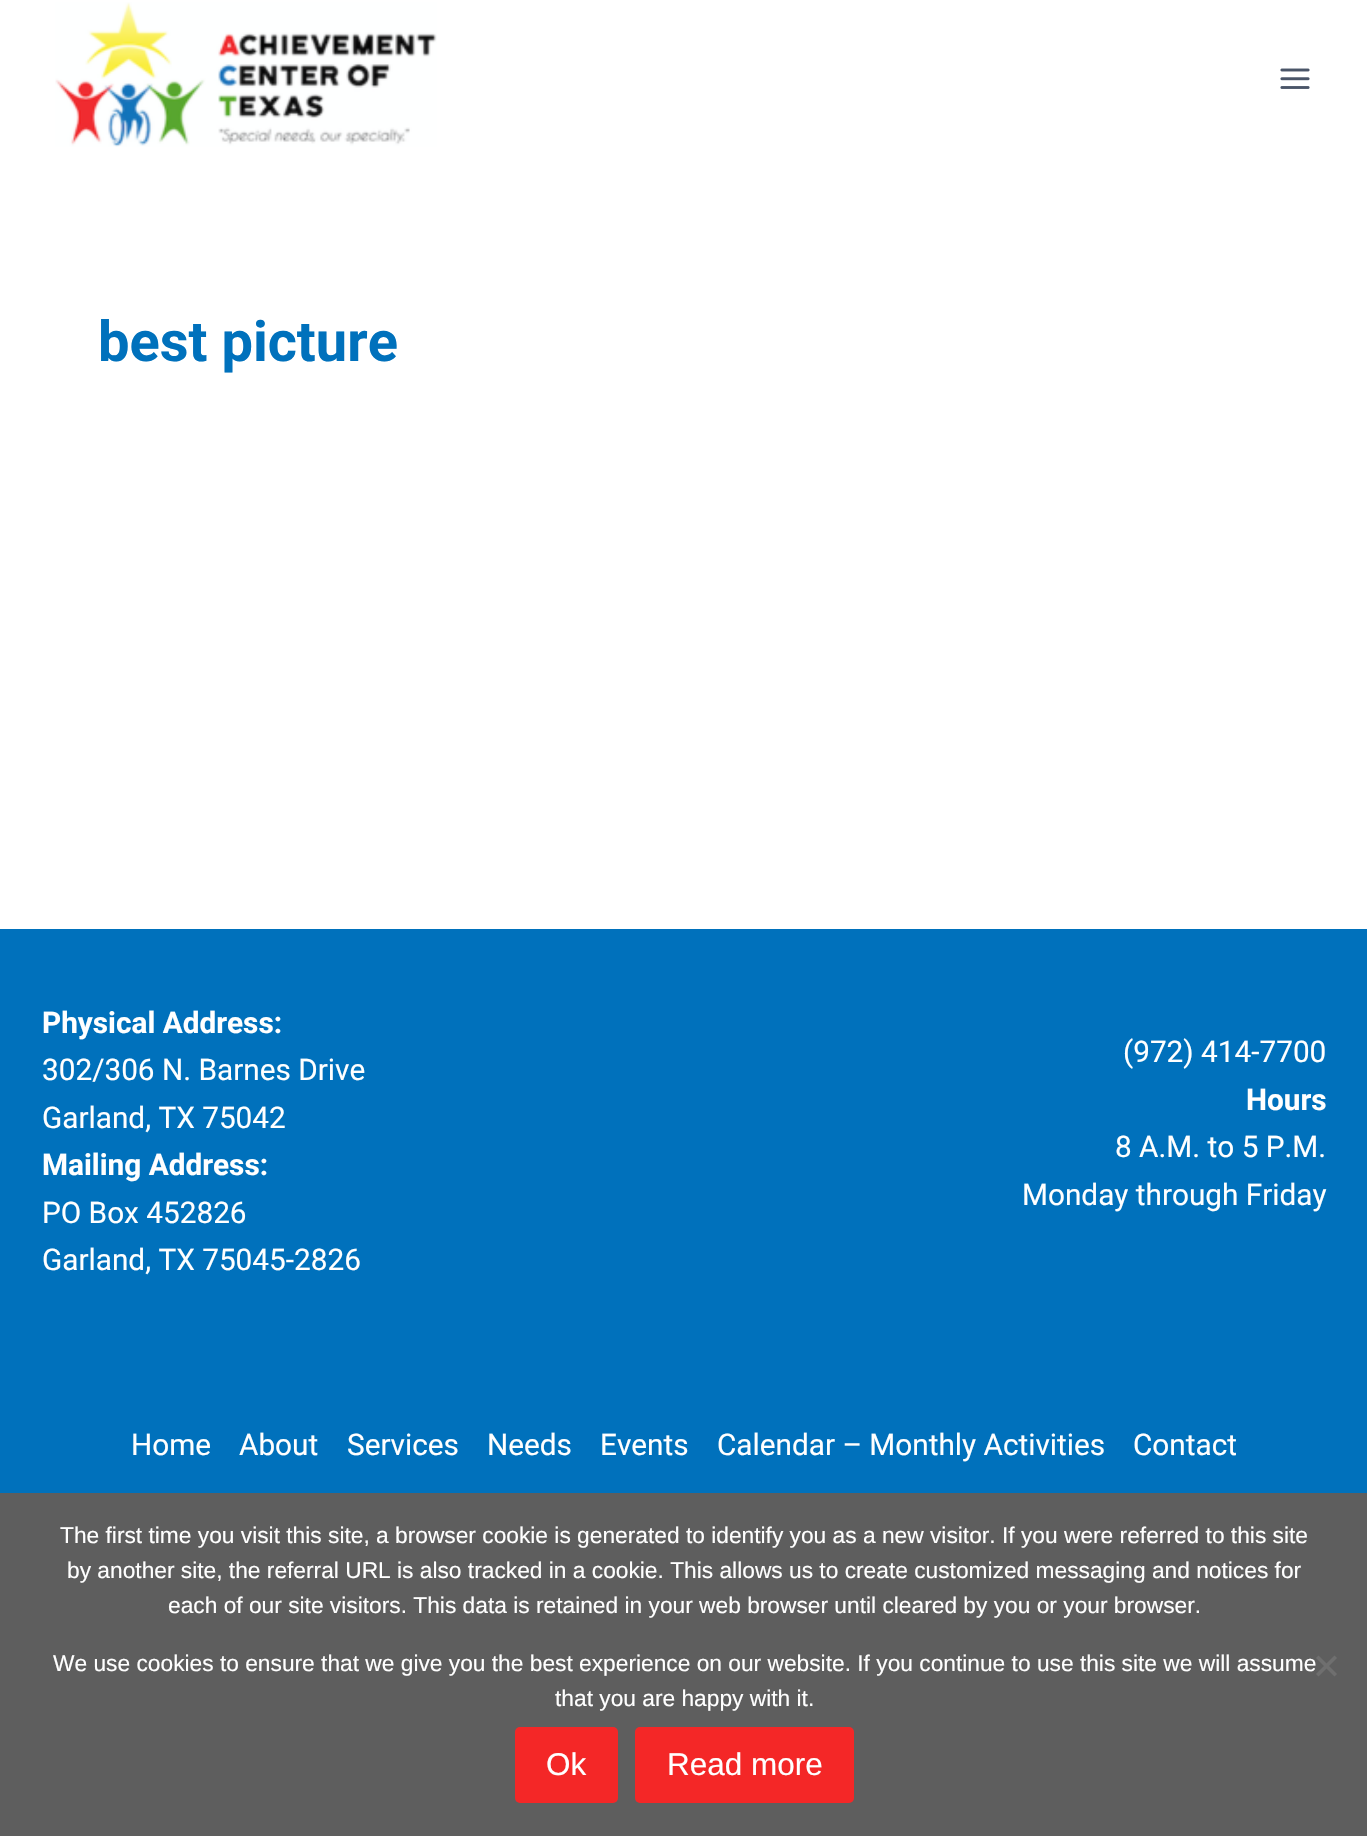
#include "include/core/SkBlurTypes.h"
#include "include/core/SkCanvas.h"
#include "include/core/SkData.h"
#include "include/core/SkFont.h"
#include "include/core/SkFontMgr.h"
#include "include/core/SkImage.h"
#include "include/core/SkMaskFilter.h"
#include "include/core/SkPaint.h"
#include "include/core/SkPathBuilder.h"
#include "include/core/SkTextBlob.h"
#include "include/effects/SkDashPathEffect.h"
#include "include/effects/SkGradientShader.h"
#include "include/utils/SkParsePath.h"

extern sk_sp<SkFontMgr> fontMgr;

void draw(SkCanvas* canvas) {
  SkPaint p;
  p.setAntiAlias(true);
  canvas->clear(SK_ColorWHITE);
  canvas->drawImageRect(SkImages::DeferredFromEncodedData(SkData::MakeFromFileName("images/1.png")), SkRect::MakeLTRB(55, 2, 437, 147), SkSamplingOptions());
  canvas->drawImageRect(SkImages::DeferredFromEncodedData(SkData::MakeFromFileName("images/2.png")), SkRect::MakeLTRB(1280, 68, 1310, 89), SkSamplingOptions());
  p.setColor(SkColorSetRGB(0, 113, 188));
  canvas->drawRect(SkRect::MakeLTRB(0, 929, 1367, 1493), p);
  p.setColor(SkColorSetRGB(94, 94, 94));
  canvas->drawRect(SkRect::MakeLTRB(0, 1493, 1367, 1836), p);
  p.setColor(SkColorSetRGB(111, 111, 111));
  canvas->drawPath(SkPathBuilder().moveTo(1334.5f, 1655.5f).lineTo(1337, 1658).lineTo(1318.5f, 1676.5f).lineTo(1316, 1674).close().detach(), p);
  canvas->drawPath(SkPathBuilder().moveTo(1316, 1658).lineTo(1318.5f, 1655.5f).lineTo(1337, 1674).lineTo(1334.5f, 1676.5f).close().detach(), p);
  p.setColor(SkColorSetRGB(244, 39, 39));
  canvas->drawRoundRect(SkRect::MakeLTRB(515, 1727, 618, 1803), 5, 5, p);
  canvas->drawRoundRect(SkRect::MakeLTRB(635, 1727, 854, 1803), 5, 5, p);
  SkFont font1(fontMgr->matchFamilyStyle("Roboto", SkFontStyle::Bold()), 56);
  font1.setSubpixel(true);
  p.setColor(SkColorSetRGB(0, 113, 188));
  canvas->drawString("best picture", 98, 361, font1, p);
  SkFont font2(fontMgr->matchFamilyStyle("Roboto", SkFontStyle::Bold()), 29.75f);
  font2.setSubpixel(true);
  p.setColor(SK_ColorWHITE);
  canvas->drawString("Physical Address:", 42, 1033, font2, p);
  SkFont font3(fontMgr->matchFamilyStyle("Roboto", SkFontStyle::Normal()), 29.75f);
  font3.setSubpixel(true);
  canvas->drawString("302/306 N. Barnes Drive", 42, 1080, font3, p);
  canvas->drawString("Garland, TX 75042", 42, 1128, font3, p);
  canvas->drawString("Mailing Address:", 42, 1175, font2, p);
  canvas->drawString("PO Box 452826", 42, 1223, font3, p);
  canvas->drawString("Garland, TX 75045-2826", 42, 1270, font3, p);
  canvas->drawString("(972) 414-7700", 1123, 1062, font3, p);
  canvas->drawString("Hours", 1246, 1110, font2, p);
  canvas->drawString("8 A.M. to 5 P.M.", 1115, 1157, font3, p);
  canvas->drawString("Monday through Friday", 1022, 1205, font3, p);
  canvas->drawString("Home", 131, 1455, font3, p);
  canvas->drawString("About", 239, 1455, font3, p);
  canvas->drawString("Services", 347, 1455, font3, p);
  canvas->drawString("Needs", 487, 1455, font3, p);
  canvas->drawString("Events", 600, 1455, font3, p);
  canvas->drawString("Calendar – Monthly Activities", 717, 1455, font3, p);
  canvas->drawString("Contact", 1133, 1455, font3, p);
  SkFont font4(fontMgr->matchFamilyStyle("Liberation Sans", SkFontStyle::Normal()), 22.75f);
  font4.setSubpixel(true);
  canvas->drawString("The first time you visit this site, a browser cookie is generated to identify you as a new visitor. If you were referred to this site", 60, 1543, font4, p);
  canvas->drawString("by another site, the referral URL is also tracked in a cookie. This allows us to create customized messaging and notices for", 67, 1578, font4, p);
  canvas->drawString("each of our site visitors. This data is retained in your web browser until cleared by you or your browser.", 168, 1613, font4, p);
  canvas->drawString("We use cookies to ensure that we give you the best experience on our website. If you continue to use this site we will assume", 53, 1671, font4, p);
  canvas->drawString("that you are happy with it.", 555, 1706, font4, p);
  SkFont font5(fontMgr->matchFamilyStyle("Liberation Sans", SkFontStyle::Normal()), 31.5f);
  font5.setSubpixel(true);
  canvas->drawString("Ok", 546, 1775, font5, p);
  canvas->drawString("Read more", 667, 1775, font5, p);
}
